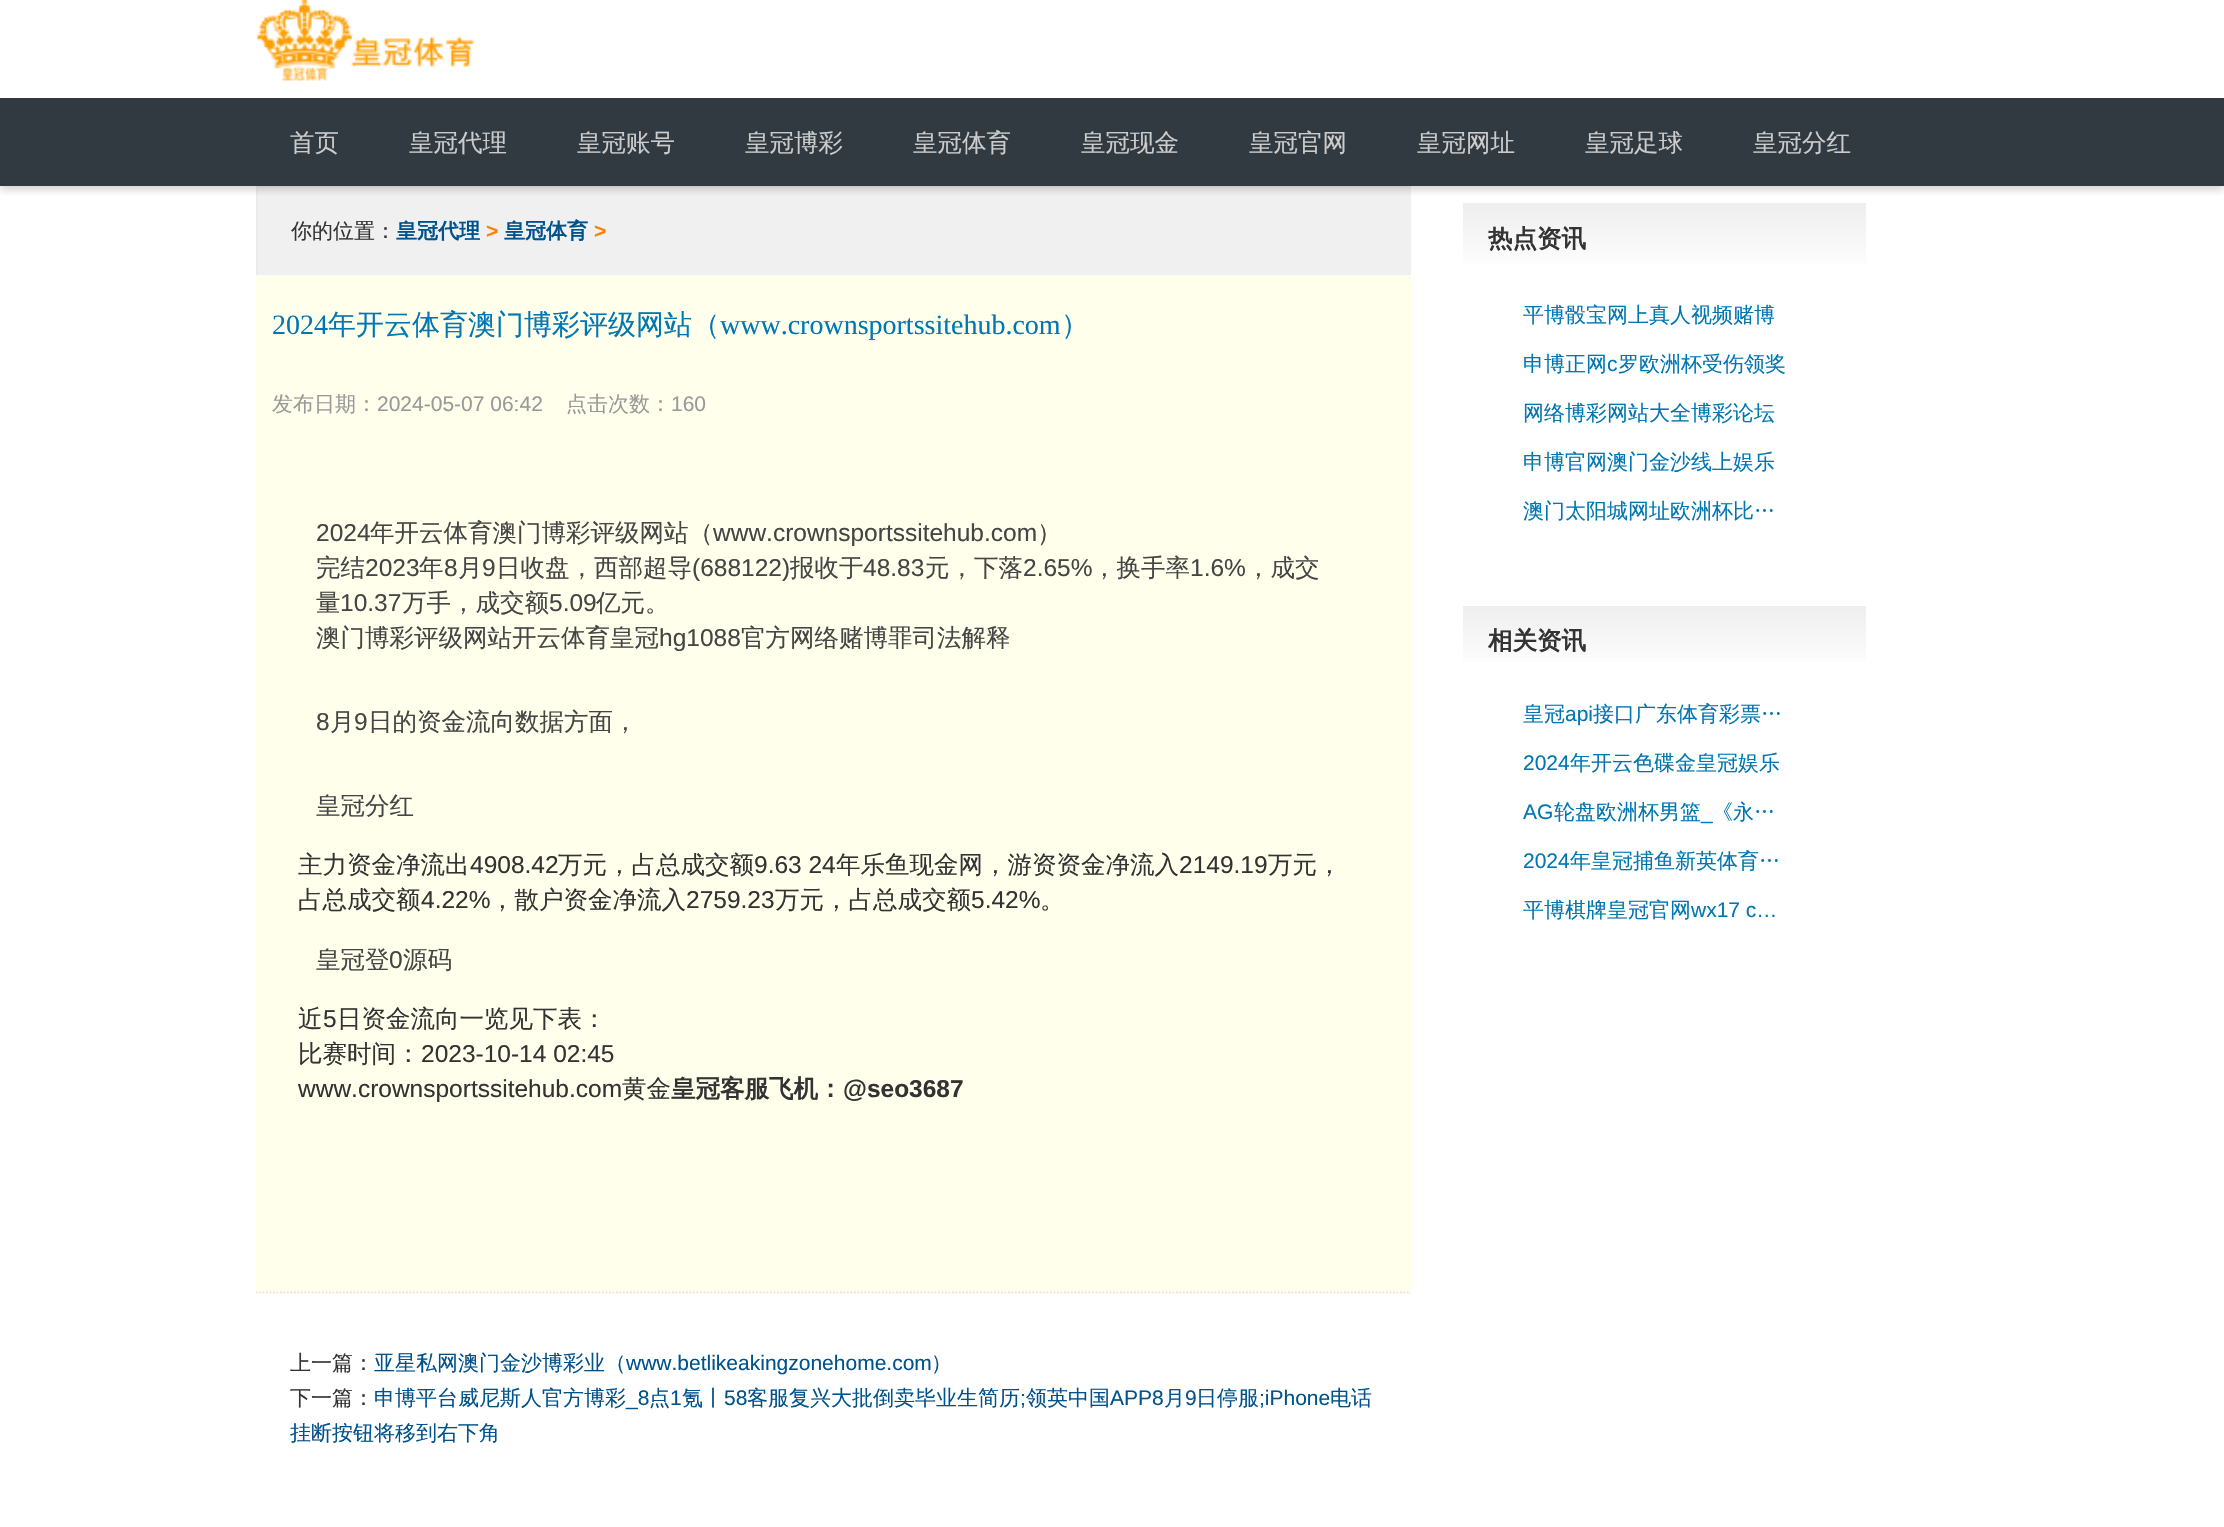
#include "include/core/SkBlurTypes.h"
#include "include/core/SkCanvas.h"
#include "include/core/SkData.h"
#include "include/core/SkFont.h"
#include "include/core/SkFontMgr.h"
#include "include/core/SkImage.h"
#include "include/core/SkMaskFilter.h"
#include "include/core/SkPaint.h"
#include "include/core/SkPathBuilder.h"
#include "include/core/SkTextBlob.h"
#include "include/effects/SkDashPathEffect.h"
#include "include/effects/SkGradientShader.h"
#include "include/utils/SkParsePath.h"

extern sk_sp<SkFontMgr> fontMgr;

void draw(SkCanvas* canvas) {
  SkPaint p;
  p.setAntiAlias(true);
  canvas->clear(SK_ColorWHITE);
  p.setColor(SkColorSetRGB(240, 240, 240));
  canvas->drawRect(SkRect::MakeLTRB(258, 188, 1411, 275), p);
  p.setColor(SkColorSetRGB(235, 235, 235));
  canvas->drawRect(SkRect::MakeLTRB(256, 186, 1411, 188), p);
  canvas->drawRect(SkRect::MakeLTRB(256, 186, 258, 275), p);
  {
    const SkColor colors[] = {SkColorSetRGB(238, 238, 238), SK_ColorWHITE};
    const float stops[] = {0, 1};
    const SkPoint ends[] = {{1664, 203}, {1664, 273}};
    p.setShader(SkGradientShader::MakeLinear(ends, colors, stops, 2, SkTileMode::kClamp));
    p.setAlpha(255);
  }
  canvas->drawRect(SkRect::MakeLTRB(1463, 203, 1866, 263), p);
  canvas->save();
  canvas->clipRect(SkRect::MakeLTRB(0, 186, 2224, 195));
  p.setShader(nullptr);
  p.setColor(SkColorSetARGB(51, 0, 0, 0));
  p.setMaskFilter(SkMaskFilter::MakeBlur(kNormal_SkBlurStyle, 4.5f));
  canvas->drawRect(SkRect::MakeLTRB(0, 4, 2224, 189), p);
  p.setMaskFilter(nullptr);
  canvas->restore();
  canvas->drawImageRect(SkImages::DeferredFromEncodedData(SkData::MakeFromFileName("images/1.png")), SkRect::MakeLTRB(256, 0, 475, 81), SkSamplingOptions());
  p.setColor(SkColorSetRGB(48, 58, 64));
  canvas->drawRect(SkRect::MakeLTRB(0, 98, 2224, 186), p);
  p.setColor(SkColorSetRGB(255, 255, 236));
  canvas->drawRect(SkRect::MakeLTRB(256, 275, 1411, 1293), p);
  canvas->save();
  canvas->clipRect(SkRect::MakeLTRB(256, 186, 1411, 1486));
  p.setStyle(SkPaint::kStroke_Style);
  p.setStrokeWidth(1.8f);
  p.setColor(SkColorSetRGB(230, 230, 230));
  p.setPathEffect(SkDashPathEffect::Make({{1.75f, 1.75f}}, 0));
  canvas->drawPath(SkPathBuilder().moveTo(255.5f, 1292.5f).lineTo(1935.5f, 1292.5f).detach(), p);
  p.setPathEffect(nullptr);
  canvas->restore();
  p.setStyle(SkPaint::kFill_Style);
  {
    const SkColor colors[] = {SkColorSetRGB(238, 238, 238), SK_ColorWHITE};
    const float stops[] = {0, 1};
    const SkPoint ends[] = {{1664, 606}, {1664, 672}};
    p.setShader(SkGradientShader::MakeLinear(ends, colors, stops, 2, SkTileMode::kClamp));
    p.setAlpha(255);
  }
  canvas->drawRect(SkRect::MakeLTRB(1463, 606, 1866, 662), p);
  SkFont font1(fontMgr->matchFamilyStyle("WenQuanYi Zen Hei", SkFontStyle(500, SkFontStyle::kNormal_Width, SkFontStyle::kUpright_Slant)), 24.5f);
  font1.setSubpixel(true);
  p.setShader(nullptr);
  p.setColor(SkColorSetRGB(204, 204, 204));
  canvas->drawString("首页", 290, 151, font1, p);
  canvas->drawString("皇冠代理", 409, 151, font1, p);
  canvas->drawString("皇冠账号", 577, 151, font1, p);
  canvas->drawString("皇冠博彩", 745, 151, font1, p);
  canvas->drawString("皇冠体育", 913, 151, font1, p);
  canvas->drawString("皇冠现金", 1081, 151, font1, p);
  canvas->drawString("皇冠官网", 1249, 151, font1, p);
  canvas->drawString("皇冠网址", 1417, 151, font1, p);
  canvas->drawString("皇冠足球", 1585, 151, font1, p);
  canvas->drawString("皇冠分红", 1753, 151, font1, p);
  SkFont font2(fontMgr->matchFamilyStyle("WenQuanYi Zen Hei", SkFontStyle(500, SkFontStyle::kNormal_Width, SkFontStyle::kUpright_Slant)), 21);
  font2.setSubpixel(true);
  p.setColor(SkColorSetRGB(51, 51, 51));
  canvas->drawString("你的位置：", 291, 238, font2, p);
  SkFont font3(fontMgr->matchFamilyStyle("WenQuanYi Zen Hei", SkFontStyle::Bold()), 21);
  font3.setSubpixel(true);
  p.setColor(SkColorSetRGB(0, 82, 140));
  canvas->drawString("皇冠代理", 396, 238, font3, p);
  SkFont font4(fontMgr->matchFamilyStyle("Liberation Sans", SkFontStyle::Bold()), 21);
  font4.setSubpixel(true);
  p.setColor(SkColorSetRGB(255, 127, 0));
  canvas->drawString(">", 486, 238, font4, p);
  p.setColor(SkColorSetRGB(0, 82, 140));
  canvas->drawString("皇冠体育", 504, 238, font3, p);
  p.setColor(SkColorSetRGB(255, 127, 0));
  canvas->drawString(">", 594, 238, font4, p);
  SkFont font5(fontMgr->matchFamilyStyle("Liberation Serif", SkFontStyle::Normal()), 28);
  font5.setSubpixel(true);
  p.setColor(SkColorSetRGB(0, 119, 179));
  canvas->drawString("2024", 272, 334, font5, p);
  SkFont font6(fontMgr->matchFamilyStyle("WenQuanYi Zen Hei", SkFontStyle(500, SkFontStyle::kNormal_Width, SkFontStyle::kUpright_Slant)), 28);
  font6.setSubpixel(true);
  canvas->drawString("年开云体育澳门博彩评级网站（", 328, 334, font6, p);
  canvas->drawString("www.crownsportssitehub.com", 720, 334, font5, p);
  canvas->drawString("）", 1061, 334, font6, p);
  p.setColor(SkColorSetRGB(153, 153, 153));
  canvas->drawString("发布日期：", 272, 411, font2, p);
  SkFont font7(fontMgr->matchFamilyStyle("Liberation Sans", SkFontStyle::Normal()), 21);
  font7.setSubpixel(true);
  canvas->drawString("2024-05-07 06:42", 377, 411, font7, p);
  canvas->drawString("点击次数：", 566, 411, font2, p);
  canvas->drawString("160", 671, 411, font7, p);
  SkFont font8(fontMgr->matchFamilyStyle("Liberation Sans", SkFontStyle::Normal()), 24.5f);
  font8.setSubpixel(true);
  p.setColor(SkColorSetRGB(69, 69, 69));
  canvas->drawString("2024", 316, 541, font8, p);
  canvas->drawString("年开云体育澳门博彩评级网站（", 370, 541, font1, p);
  canvas->drawString("www.crownsportssitehub.com", 713, 541, font8, p);
  canvas->drawString("）", 1037, 541, font1, p);
  canvas->drawString("完结", 316, 576, font1, p);
  canvas->drawString("2023", 365, 576, font8, p);
  canvas->drawString("年", 419, 576, font1, p);
  canvas->drawString("8", 444, 576, font8, p);
  canvas->drawString("月", 458, 576, font1, p);
  canvas->drawString("9", 482, 576, font8, p);
  canvas->drawString("日收盘，西部超导", 496, 576, font1, p);
  canvas->drawString("(688122)", 692, 576, font8, p);
  canvas->drawString("报收于", 790, 576, font1, p);
  canvas->drawString("48.83", 863, 576, font8, p);
  canvas->drawString("元，下落", 925, 576, font1, p);
  canvas->drawString("2.65%", 1023, 576, font8, p);
  canvas->drawString("，换手率", 1092, 576, font1, p);
  canvas->drawString("1.6%", 1190, 576, font8, p);
  canvas->drawString("，成交", 1246, 576, font1, p);
  canvas->drawString("量", 316, 611, font1, p);
  canvas->drawString("10.37", 340, 611, font8, p);
  canvas->drawString("万手，成交额", 402, 611, font1, p);
  canvas->drawString("5.09", 549, 611, font8, p);
  canvas->drawString("亿元。", 596, 611, font1, p);
  canvas->drawString("澳门博彩评级网站开云体育皇冠", 316, 646, font1, p);
  canvas->drawString("hg1088", 659, 646, font8, p);
  canvas->drawString("官方网络赌博罪司法解释", 741, 646, font1, p);
  canvas->drawString("8", 316, 730, font8, p);
  canvas->drawString("月", 330, 730, font1, p);
  canvas->drawString("9", 354, 730, font8, p);
  canvas->drawString("日的资金流向数据方面，", 368, 730, font1, p);
  canvas->drawString("皇冠分红", 316, 814, font1, p);
  p.setColor(SkColorSetRGB(51, 51, 51));
  canvas->drawString("主力资金净流出", 298, 873, font1, p);
  canvas->drawString("4908.42", 470, 873, font8, p);
  canvas->drawString("万元，占总成交额", 558, 873, font1, p);
  canvas->drawString("9.63 24", 754, 873, font8, p);
  canvas->drawString("年乐鱼现金网，游资资金净流入", 836, 873, font1, p);
  canvas->drawString("2149.19", 1179, 873, font8, p);
  canvas->drawString("万元，", 1268, 873, font1, p);
  canvas->drawString("占总成交额", 298, 908, font1, p);
  canvas->drawString("4.22%", 421, 908, font8, p);
  canvas->drawString("，散户资金净流入", 490, 908, font1, p);
  canvas->drawString("2759.23", 686, 908, font8, p);
  canvas->drawString("万元，占总成交额", 775, 908, font1, p);
  canvas->drawString("5.42%", 971, 908, font8, p);
  canvas->drawString("。", 1040, 908, font1, p);
  p.setColor(SkColorSetRGB(69, 69, 69));
  canvas->drawString("皇冠登", 316, 968, font1, p);
  canvas->drawString("0", 389, 968, font8, p);
  canvas->drawString("源码", 403, 968, font1, p);
  p.setColor(SkColorSetRGB(51, 51, 51));
  canvas->drawString("近", 298, 1027, font1, p);
  canvas->drawString("5", 323, 1027, font8, p);
  canvas->drawString("日资金流向一览见下表：", 337, 1027, font1, p);
  canvas->drawString("比赛时间：", 298, 1062, font1, p);
  canvas->drawString("2023-10-14 02:45", 421, 1062, font8, p);
  canvas->drawString("www.crownsportssitehub.com", 298, 1097, font8, p);
  canvas->drawString("黄金", 622, 1097, font1, p);
  SkFont font9(fontMgr->matchFamilyStyle("WenQuanYi Zen Hei", SkFontStyle::Bold()), 24.5f);
  font9.setSubpixel(true);
  canvas->drawString("皇冠客服飞机：", 671, 1097, font9, p);
  SkFont font10(fontMgr->matchFamilyStyle("Liberation Sans", SkFontStyle::Bold()), 24.5f);
  font10.setSubpixel(true);
  canvas->drawString("@seo3687", 843, 1097, font10, p);
  canvas->drawString("上一篇：", 290, 1370, font2, p);
  p.setColor(SkColorSetRGB(0, 82, 140));
  canvas->drawString("亚星私网澳门金沙博彩业（", 374, 1370, font2, p);
  canvas->drawString("www.betlikeakingzonehome.com", 626, 1370, font7, p);
  canvas->drawString("）", 931, 1370, font2, p);
  p.setColor(SkColorSetRGB(51, 51, 51));
  canvas->drawString("下一篇：", 290, 1405, font2, p);
  p.setColor(SkColorSetRGB(0, 82, 140));
  canvas->drawString("申博平台威尼斯人官方博彩", 374, 1405, font2, p);
  canvas->drawString("_8", 626, 1405, font7, p);
  canvas->drawString("点", 649, 1405, font2, p);
  canvas->drawString("1", 670, 1405, font7, p);
  canvas->drawString("氪丨", 682, 1405, font2, p);
  canvas->drawString("58", 724, 1405, font7, p);
  canvas->drawString("客服复兴大批倒卖毕业生简历", 747, 1405, font2, p);
  canvas->drawString(";", 1020, 1405, font7, p);
  canvas->drawString("领英中国", 1026, 1405, font2, p);
  canvas->drawString("APP8", 1110, 1405, font7, p);
  canvas->drawString("月", 1164, 1405, font2, p);
  canvas->drawString("9", 1185, 1405, font7, p);
  canvas->drawString("日停服", 1196, 1405, font2, p);
  canvas->drawString(";iPhone", 1259, 1405, font7, p);
  canvas->drawString("电话", 1330, 1405, font2, p);
  canvas->drawString("挂断按钮将移到右下角", 290, 1440, font2, p);
  p.setColor(SkColorSetRGB(51, 51, 51));
  canvas->drawString("热点资讯", 1488, 247, font9, p);
  p.setColor(SkColorSetRGB(0, 119, 179));
  canvas->drawString("平博骰宝网上真人视频赌博", 1523, 322, font2, p);
  canvas->drawString("申博正网", 1523, 371, font2, p);
  canvas->drawString("c", 1607, 371, font7, p);
  canvas->drawString("罗欧洲杯受伤领奖", 1618, 371, font2, p);
  canvas->drawString("网络博彩网站大全博彩论坛", 1523, 420, font2, p);
  canvas->drawString("申博官网澳门金沙线上娱乐", 1523, 469, font2, p);
  canvas->drawString("澳门太阳城网址欧洲杯比…", 1523, 518, font2, p);
  p.setColor(SkColorSetRGB(51, 51, 51));
  canvas->drawString("相关资讯", 1488, 649, font9, p);
  p.setColor(SkColorSetRGB(0, 119, 179));
  canvas->drawString("皇冠", 1523, 721, font2, p);
  canvas->drawString("api", 1565, 721, font7, p);
  canvas->drawString("接口广东体育彩票…", 1593, 721, font2, p);
  canvas->drawString("2024", 1523, 770, font7, p);
  canvas->drawString("年开云色碟金皇冠娱乐", 1570, 770, font2, p);
  canvas->drawString("AG", 1523, 819, font7, p);
  canvas->drawString("轮盘欧洲杯男篮", 1554, 819, font2, p);
  canvas->drawString("《永…", 1712, 819, font2, p);
  canvas->drawString("_", 1701, 819, font7, p);
  canvas->drawString("2024", 1523, 868, font7, p);
  canvas->drawString("年皇冠捕鱼新英体育…", 1570, 868, font2, p);
  canvas->drawString("平博棋牌皇冠官网", 1523, 917, font2, p);
  canvas->drawString("wx17 c…", 1691, 917, font7, p);
}
